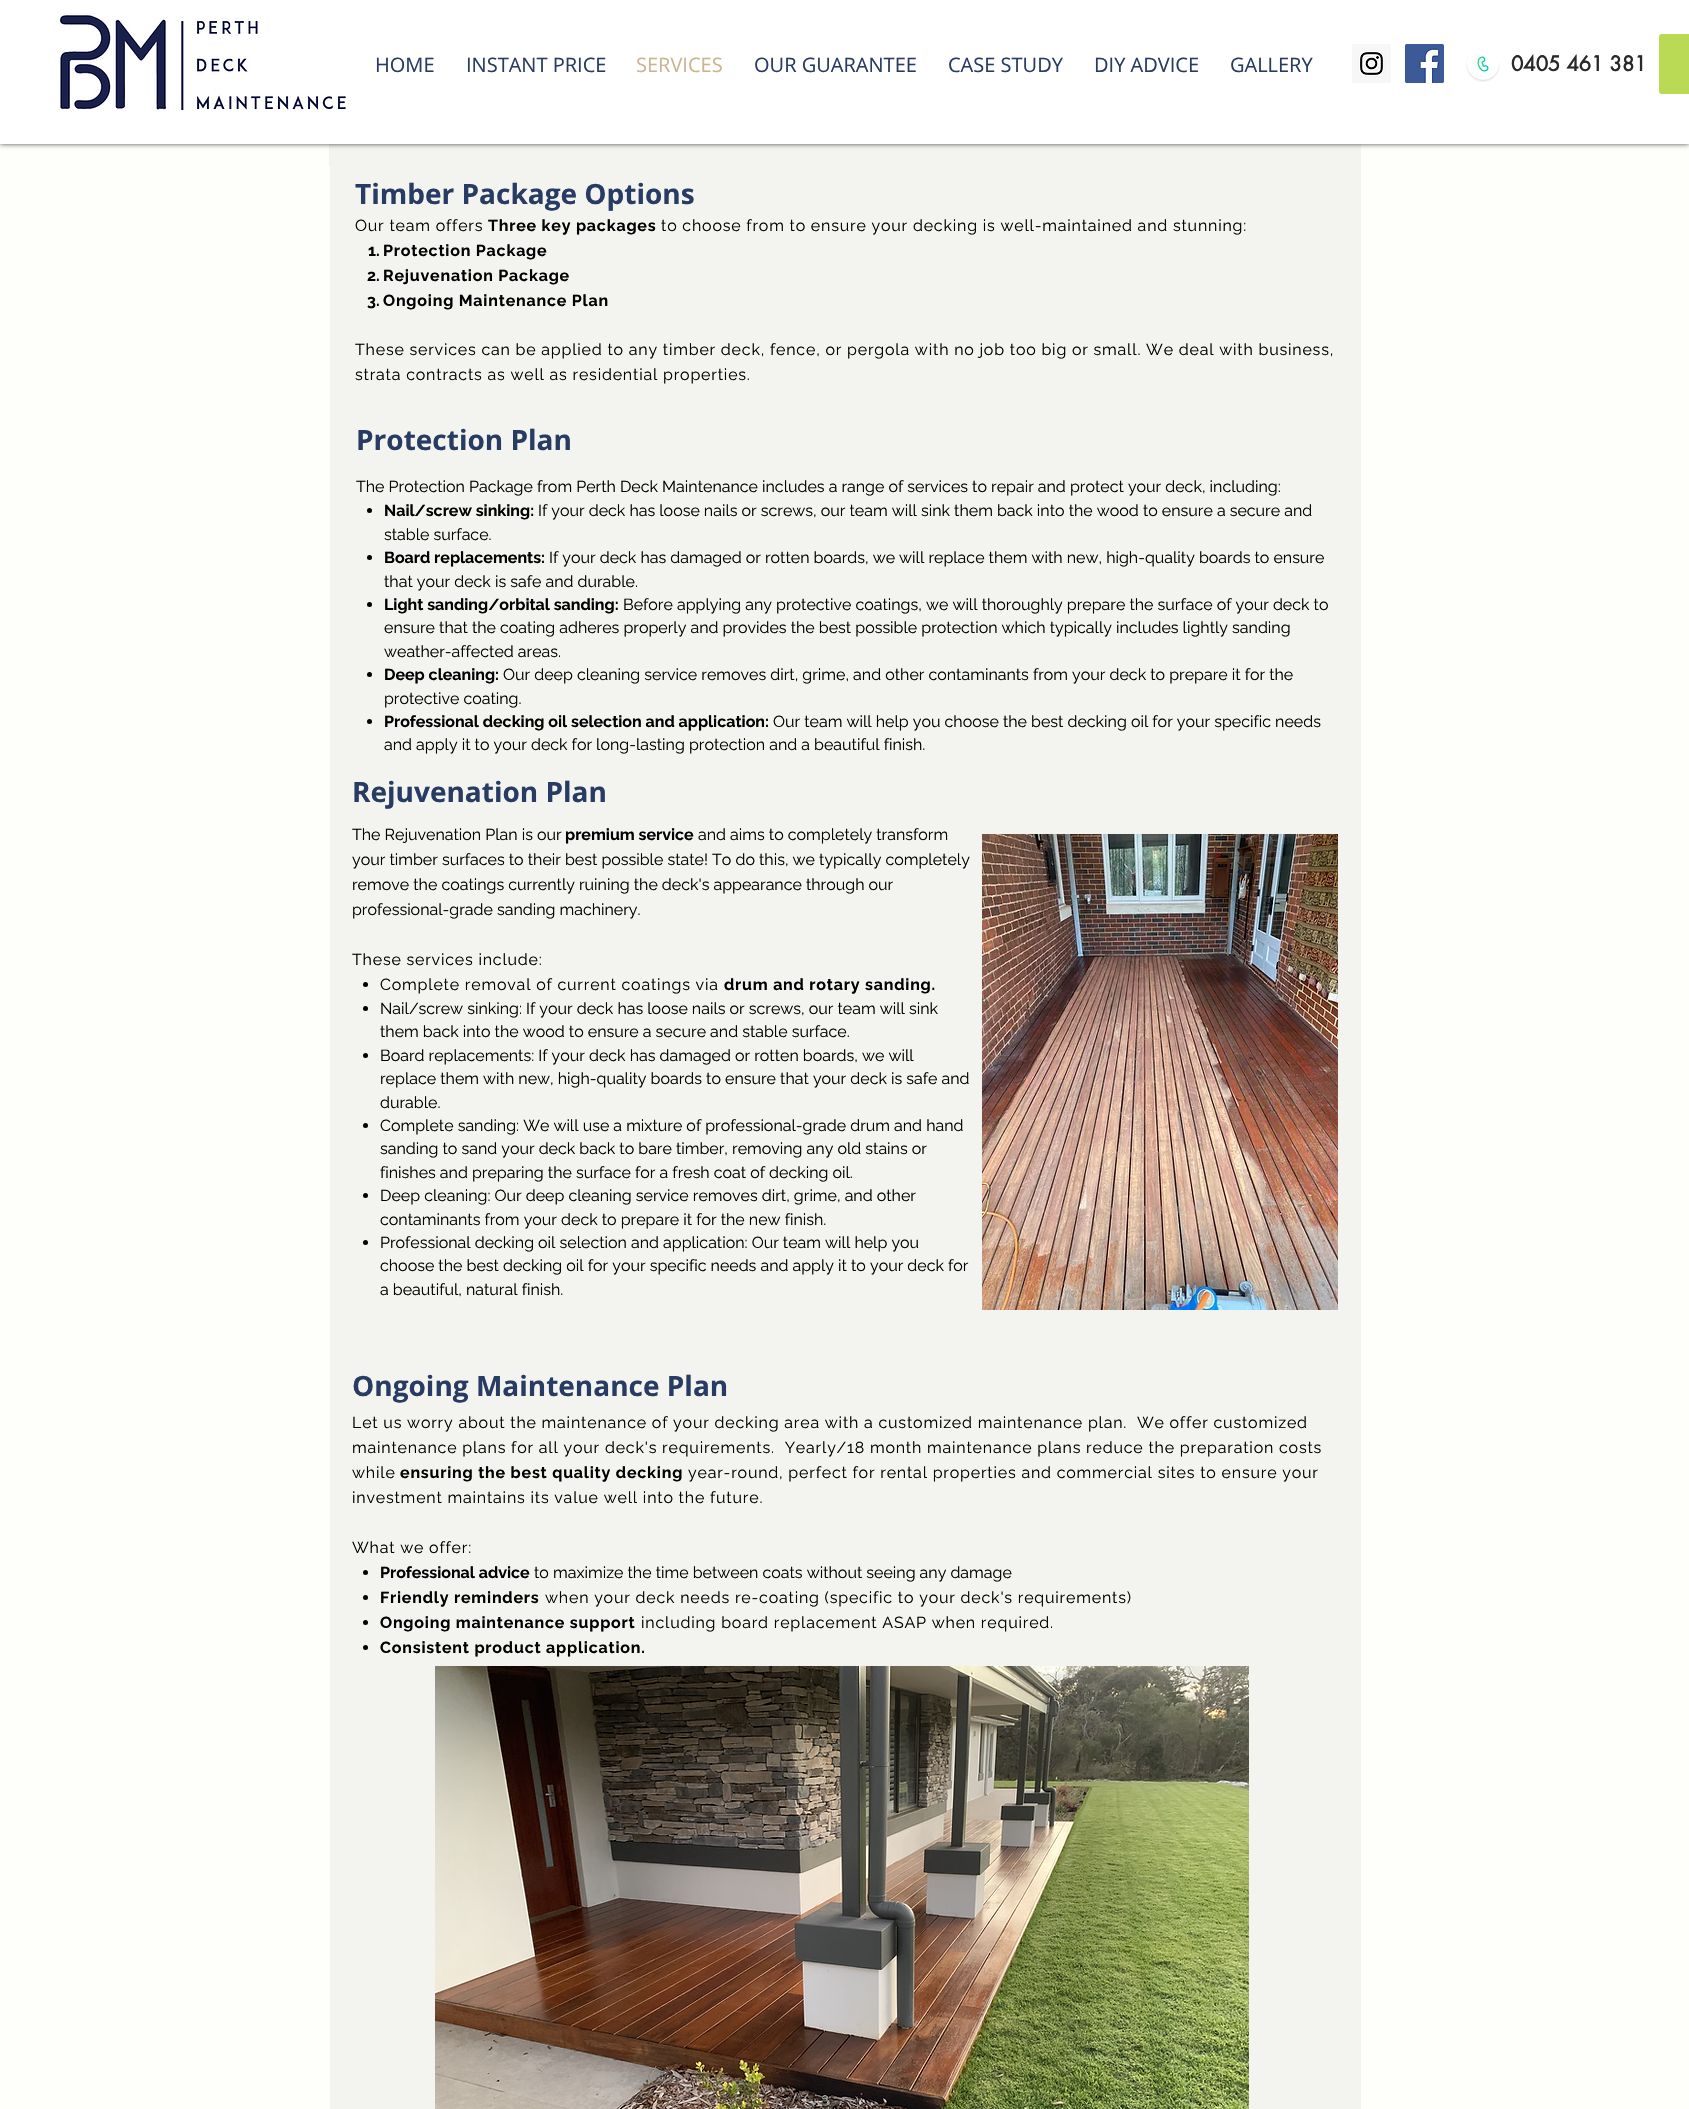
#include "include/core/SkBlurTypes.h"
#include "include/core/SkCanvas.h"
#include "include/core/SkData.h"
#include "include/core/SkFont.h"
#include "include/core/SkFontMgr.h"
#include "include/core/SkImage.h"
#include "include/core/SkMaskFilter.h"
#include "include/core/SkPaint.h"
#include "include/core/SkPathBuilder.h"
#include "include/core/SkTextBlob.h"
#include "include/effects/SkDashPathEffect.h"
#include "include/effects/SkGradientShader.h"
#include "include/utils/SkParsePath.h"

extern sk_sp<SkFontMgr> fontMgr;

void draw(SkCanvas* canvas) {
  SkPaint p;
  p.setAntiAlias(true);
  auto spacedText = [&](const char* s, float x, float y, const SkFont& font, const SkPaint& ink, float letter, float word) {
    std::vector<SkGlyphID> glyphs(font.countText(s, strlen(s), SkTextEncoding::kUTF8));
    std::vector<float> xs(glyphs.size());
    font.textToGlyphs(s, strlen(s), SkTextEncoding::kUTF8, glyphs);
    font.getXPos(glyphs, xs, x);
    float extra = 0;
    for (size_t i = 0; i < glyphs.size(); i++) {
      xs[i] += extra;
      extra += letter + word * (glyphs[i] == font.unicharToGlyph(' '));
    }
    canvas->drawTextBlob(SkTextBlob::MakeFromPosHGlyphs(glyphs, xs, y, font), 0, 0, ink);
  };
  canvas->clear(SkColorSetRGB(254, 254, 251));
  p.setColor(SkColorSetRGB(242, 242, 237));
  canvas->drawRect(SkRect::MakeLTRB(329, 144, 330, 166), p);
  p.setColor(SkColorSetRGB(243, 243, 239));
  canvas->drawRect(SkRect::MakeLTRB(330, 144, 1361, 2109), p);
  p.setColor(SkColorSetARGB(179, 0, 0, 0));
  p.setMaskFilter(SkMaskFilter::MakeBlur(kNormal_SkBlurStyle, 2.5f));
  canvas->drawRect(SkRect::MakeLTRB(0, 0, 1689, 144), p);
  p.setMaskFilter(nullptr);
  p.setColor(SK_ColorWHITE);
  canvas->drawRect(SkRect::MakeLTRB(0, 0, 1689, 144), p);
  canvas->drawImageRect(SkImages::DeferredFromEncodedData(SkData::MakeFromFileName("images/1.png")), SkRect::MakeLTRB(59, 13, 346, 110), SkSamplingOptions());
  canvas->drawImageRect(SkImages::DeferredFromEncodedData(SkData::MakeFromFileName("images/2.png")), SkRect::MakeLTRB(1352, 44, 1391, 83), SkSamplingOptions());
  canvas->drawImageRect(SkImages::DeferredFromEncodedData(SkData::MakeFromFileName("images/3.png")), SkRect::MakeLTRB(1405, 44, 1444, 83), SkSamplingOptions());
  canvas->drawImageRect(SkImages::DeferredFromEncodedData(SkData::MakeFromFileName("images/4.png")), SkRect::MakeLTRB(1466, 56, 1500, 82), SkSamplingOptions());
  p.setColor(SkColorSetRGB(186, 218, 85));
  canvas->drawRoundRect(SkRect::MakeLTRB(1659, 34, 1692, 94), 3, 3, p);
  p.setColor(SK_ColorBLACK);
  canvas->drawCircle(369.5f, 510.5f, 2.5f, p);
  canvas->drawCircle(369.5f, 557.5f, 2.5f, p);
  canvas->drawCircle(369.5f, 604.5f, 2.5f, p);
  canvas->drawCircle(369.5f, 674.5f, 2.5f, p);
  canvas->drawCircle(369.5f, 721.5f, 2.5f, p);
  canvas->drawCircle(365.5f, 984.5f, 2.5f, p);
  canvas->drawCircle(365.5f, 1008.5f, 2.5f, p);
  canvas->drawCircle(365.5f, 1055.5f, 2.5f, p);
  canvas->drawCircle(365.5f, 1125.5f, 2.5f, p);
  canvas->drawCircle(365.5f, 1195.5f, 2.5f, p);
  canvas->drawCircle(365.5f, 1242.5f, 2.5f, p);
  canvas->drawImageRect(SkImages::DeferredFromEncodedData(SkData::MakeFromFileName("images/5.png")), SkRect::MakeLTRB(982, 834, 1338, 1310), SkSamplingOptions());
  canvas->drawCircle(365.5f, 1572.5f, 2.5f, p);
  canvas->drawCircle(365.5f, 1597.5f, 2.5f, p);
  canvas->drawCircle(365.5f, 1622.5f, 2.5f, p);
  canvas->drawCircle(365.5f, 1647.5f, 2.5f, p);
  canvas->drawImageRect(SkImages::DeferredFromEncodedData(SkData::MakeFromFileName("images/6.png")), SkRect::MakeLTRB(435, 1666, 1249, 2109), SkSamplingOptions());
  SkFont font1(fontMgr->matchFamilyStyle("Open Sans", SkFontStyle::Normal()), 20);
  font1.setSubpixel(true);
  p.setColor(SkColorSetRGB(40, 59, 98));
  canvas->drawString("HOME", 375, 72, font1, p);
  canvas->drawString("INSTANT PRICE", 466, 72, font1, p);
  p.setColor(SkColorSetRGB(203, 180, 146));
  canvas->drawString("SERVICES", 636, 72, font1, p);
  p.setColor(SkColorSetRGB(40, 59, 98));
  canvas->drawString("OUR GUARANTEE", 754, 72, font1, p);
  canvas->drawString("CASE STUDY", 948, 72, font1, p);
  canvas->drawString("DIY ADVICE", 1094, 72, font1, p);
  canvas->drawString("GALLERY", 1230, 72, font1, p);
  SkFont font2(fontMgr->matchFamilyStyle("futura", SkFontStyle::Bold()), 20);
  font2.setSubpixel(true);
  p.setColor(SkColorSetRGB(41, 41, 41));
  canvas->drawString("0405 461 381", 1511, 71, font2, p);
  SkFont font3(fontMgr->matchFamilyStyle("Open Sans", SkFontStyle::Bold()), 28);
  font3.setSubpixel(true);
  p.setColor(SkColorSetRGB(40, 59, 98));
  canvas->drawString("Timber Package Options", 355, 204, font3, p);
  SkFont font4(fontMgr->matchFamilyStyle("Raleway", SkFontStyle::Normal()), 16);
  font4.setSubpixel(true);
  p.setColor(SK_ColorBLACK);
  spacedText("Our team offers", 355, 231, font4, p, 0.8f, 0);
  SkFont font5(fontMgr->matchFamilyStyle("Raleway", SkFontStyle::Bold()), 16);
  font5.setSubpixel(true);
  spacedText("Three key packages", 488, 231, font5, p, 0.8f, 0);
  spacedText("to choose from to ensure your decking is well-maintained and stunning:", 661, 231, font4, p, 0.8f, 0);
  canvas->drawString("1.", 368, 256, font5, p);
  spacedText("Protection Package", 383, 256, font5, p, 0.8f, 0);
  canvas->drawString("2.", 367, 281, font5, p);
  spacedText("Rejuvenation Package", 383, 281, font5, p, 0.8f, 0);
  canvas->drawString("3.", 367, 306, font5, p);
  spacedText("Ongoing Maintenance Plan", 383, 306, font5, p, 0.8f, 0);
  spacedText("These services can be applied to any timber deck, fence, or pergola with no job too big or small. We deal with business,", 355, 355, font4, p, 0.8f, 0);
  spacedText("strata contracts as well as residential properties.", 355, 380, font4, p, 0.8f, 0);
  p.setColor(SkColorSetRGB(40, 59, 98));
  canvas->drawString("Protection Plan", 356, 450, font3, p);
  p.setColor(SK_ColorBLACK);
  canvas->drawString("The Protection Package from Perth Deck Maintenance includes a range of services to repair and protect your deck, including:", 356, 492, font4, p);
  canvas->drawString("Nail/screw sinking:", 384, 516, font5, p);
  canvas->drawString("If your deck has loose nails or screws, our team will sink them back into the wood to ensure a secure and", 538, 516, font4, p);
  canvas->drawString("stable surface.", 384, 540, font4, p);
  canvas->drawString("Board replacements:", 384, 563, font5, p);
  canvas->drawString("If your deck has damaged or rotten boards, we will replace them with new, high-quality boards to ensure", 549, 563, font4, p);
  canvas->drawString("that your deck is safe and durable.", 384, 587, font4, p);
  canvas->drawString("Light sanding/orbital sanding:", 384, 610, font5, p);
  canvas->drawString("Before applying any protective coatings, we will thoroughly prepare the surface of your deck to", 623, 610, font4, p);
  canvas->drawString("ensure that the coating adheres properly and provides the best possible protection which typically includes lightly sanding", 384, 633, font4, p);
  canvas->drawString("weather-affected areas.", 384, 657, font4, p);
  canvas->drawString("Deep cleaning:", 384, 680, font5, p);
  canvas->drawString("Our deep cleaning service removes dirt, grime, and other contaminants from your deck to prepare it for the", 503, 680, font4, p);
  canvas->drawString("protective coating.", 384, 704, font4, p);
  canvas->drawString("Professional decking oil selection and application:", 384, 727, font5, p);
  canvas->drawString("Our team will help you choose the best decking oil for your specific needs", 773, 727, font4, p);
  canvas->drawString("and apply it to your deck for long-lasting protection and a beautiful finish.", 384, 750, font4, p);
  p.setColor(SkColorSetRGB(40, 59, 98));
  canvas->drawString("Rejuvenation Plan", 352, 802, font3, p);
  p.setColor(SK_ColorBLACK);
  canvas->drawString("The Rejuvenation Plan is our", 352, 840, font4, p);
  canvas->drawString("premium service", 565, 840, font5, p);
  canvas->drawString("and aims to completely transform", 698, 840, font4, p);
  canvas->drawString("your timber surfaces to their best possible state! To do this, we typically completely", 352, 865, font4, p);
  canvas->drawString("remove the coatings currently ruining the deck's appearance through our", 352, 890, font4, p);
  canvas->drawString("professional-grade sanding machinery.", 352, 915, font4, p);
  spacedText("These services include:", 352, 965, font4, p, 0.8f, 0);
  spacedText("Complete removal of current coatings via", 380, 990, font4, p, 0.8f, 0);
  spacedText("drum and rotary sanding.", 724, 990, font5, p, 0.8f, 0);
  canvas->drawString("Nail/screw sinking: If your deck has loose nails or screws, our team will sink", 380, 1014, font4, p);
  canvas->drawString("them back into the wood to ensure a secure and stable surface.", 380, 1037, font4, p);
  canvas->drawString("Board replacements: If your deck has damaged or rotten boards, we will", 380, 1061, font4, p);
  canvas->drawString("replace them with new, high-quality boards to ensure that your deck is safe and", 380, 1084, font4, p);
  canvas->drawString("durable.", 380, 1108, font4, p);
  canvas->drawString("Complete sanding: We will use a mixture of professional-grade drum and hand", 380, 1131, font4, p);
  canvas->drawString("sanding to sand your deck back to bare timber, removing any old stains or", 380, 1154, font4, p);
  canvas->drawString("finishes and preparing the surface for a fresh coat of decking oil.", 380, 1178, font4, p);
  canvas->drawString("Deep cleaning: Our deep cleaning service removes dirt, grime, and other", 380, 1201, font4, p);
  canvas->drawString("contaminants from your deck to prepare it for the new finish.", 380, 1225, font4, p);
  canvas->drawString("Professional decking oil selection and application: Our team will help you", 380, 1248, font4, p);
  canvas->drawString("choose the best decking oil for your specific needs and apply it to your deck for", 380, 1271, font4, p);
  canvas->drawString("a beautiful, natural finish.", 380, 1295, font4, p);
  p.setColor(SkColorSetRGB(40, 59, 98));
  canvas->drawString("Ongoing Maintenance Plan", 352, 1396, font3, p);
  p.setColor(SK_ColorBLACK);
  spacedText("Let us worry about the maintenance of your decking area with a customized maintenance plan.  We offer customized", 352, 1428, font4, p, 0.8f, 0);
  spacedText("maintenance plans for all your deck's requirements.  Yearly/18 month maintenance plans reduce the preparation costs", 352, 1453, font4, p, 0.8f, 0);
  spacedText("while", 352, 1478, font4, p, 0.8f, 0);
  spacedText("ensuring the best quality decking", 400, 1478, font5, p, 0.8f, 0);
  spacedText("year-round, perfect for rental properties and commercial sites to ensure your", 688, 1478, font4, p, 0.8f, 0);
  spacedText("investment maintains its value well into the future.", 352, 1503, font4, p, 0.8f, 0);
  spacedText("What we offer:", 352, 1553, font4, p, 0.8f, 0);
  canvas->drawString("Professional advice", 380, 1578, font5, p);
  canvas->drawString("to maximize the time between coats without seeing any damage", 534, 1578, font4, p);
  spacedText("Friendly reminders", 380, 1603, font5, p, 0.8f, 0);
  spacedText("when your deck needs re-coating (specific to your deck's requirements)", 545, 1603, font4, p, 0.8f, 0);
  spacedText("Ongoing maintenance support", 380, 1628, font5, p, 0.8f, 0);
  spacedText("including board replacement ASAP when required.", 641, 1628, font4, p, 0.8f, 0);
  spacedText("Consistent product application.", 380, 1653, font5, p, 0.8f, 0);
}
